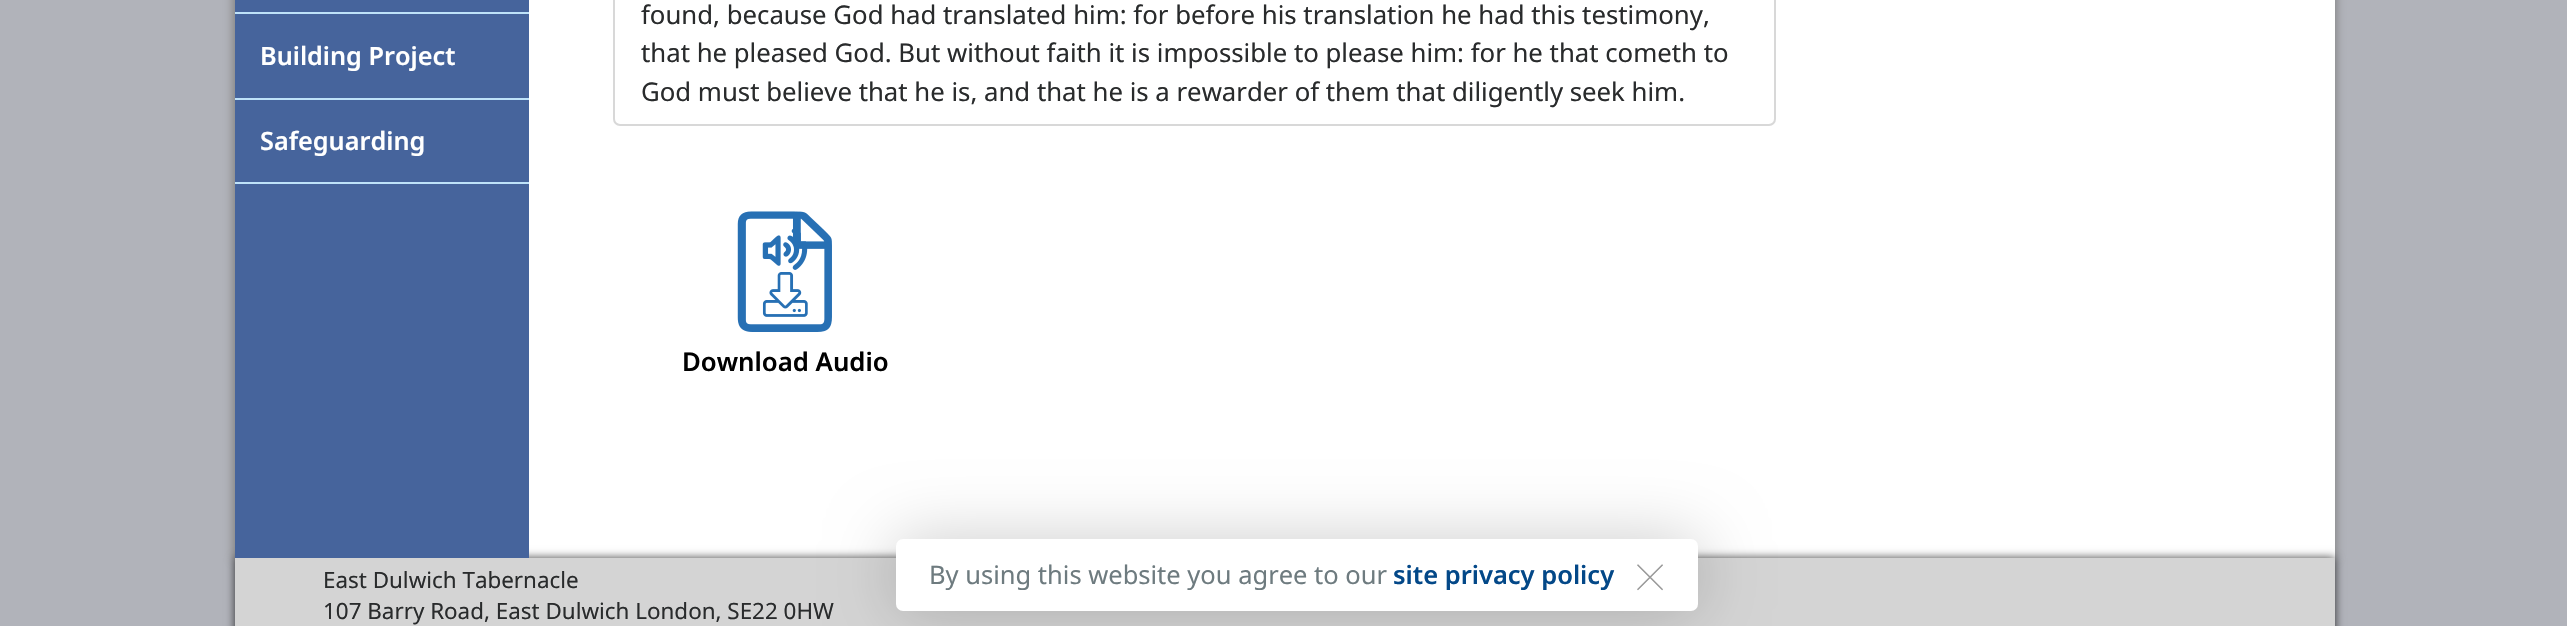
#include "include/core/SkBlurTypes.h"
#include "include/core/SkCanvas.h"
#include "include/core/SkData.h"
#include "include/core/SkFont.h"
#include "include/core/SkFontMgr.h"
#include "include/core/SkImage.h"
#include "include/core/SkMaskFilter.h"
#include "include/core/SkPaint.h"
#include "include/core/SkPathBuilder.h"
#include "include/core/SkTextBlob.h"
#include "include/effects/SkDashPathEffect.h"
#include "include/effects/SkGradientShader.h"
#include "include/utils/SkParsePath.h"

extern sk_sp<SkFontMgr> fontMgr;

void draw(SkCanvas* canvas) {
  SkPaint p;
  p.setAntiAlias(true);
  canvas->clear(SkColorSetRGB(177, 179, 186));
  p.setColor(SkColorSetRGB(128, 128, 128));
  p.setMaskFilter(SkMaskFilter::MakeBlur(kNormal_SkBlurStyle, 4.5f));
  canvas->drawRect(SkRect::MakeLTRB(233, -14, 2336, 560), p);
  p.setMaskFilter(nullptr);
  p.setColor(SK_ColorWHITE);
  canvas->drawRect(SkRect::MakeLTRB(529, 0, 2335, 558), p);
  p.setColor(SkColorSetARGB(191, 0, 0, 0));
  p.setMaskFilter(SkMaskFilter::MakeBlur(kNormal_SkBlurStyle, 4.5f));
  canvas->drawRect(SkRect::MakeLTRB(235, 558, 2335, 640), p);
  p.setMaskFilter(nullptr);
  p.setColor(SkColorSetRGB(70, 100, 156));
  canvas->drawRect(SkRect::MakeLTRB(235, 0, 529, 558), p);
  p.setColor(SkColorSetRGB(190, 226, 249));
  canvas->drawRect(SkRect::MakeLTRB(235, 12, 529, 14), p);
  canvas->drawRect(SkRect::MakeLTRB(235, 98, 529, 100), p);
  canvas->drawRect(SkRect::MakeLTRB(235, 182, 529, 184), p);
  p.setStyle(SkPaint::kStroke_Style);
  p.setStrokeWidth(2);
  p.setColor(SkColorSetRGB(216, 216, 216));
  canvas->drawRoundRect(SkRect::MakeLTRB(614, -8, 1775, 125), 6, 6, p);
  canvas->drawImageRect(SkImages::DeferredFromEncodedData(SkData::MakeFromFileName("images/1.png")), SkRect::MakeLTRB(737, 211, 832, 332), SkSamplingOptions());
  p.setStyle(SkPaint::kFill_Style);
  p.setColor(SkColorSetRGB(212, 212, 212));
  canvas->drawRect(SkRect::MakeLTRB(235, 558, 2335, 626), p);
  p.setColor(SkColorSetARGB(51, 0, 0, 0));
  p.setMaskFilter(SkMaskFilter::MakeBlur(kNormal_SkBlurStyle, 33.5f));
  canvas->drawRoundRect(SkRect::MakeLTRB(896, 539, 1698, 611), 7, 7, p);
  p.setMaskFilter(nullptr);
  p.setColor(SK_ColorWHITE);
  canvas->drawRoundRect(SkRect::MakeLTRB(896, 539, 1698, 611), 7, 7, p);
  SkFont font1(fontMgr->matchFamilyStyle("Noto Sans", SkFontStyle(600, SkFontStyle::kNormal_Width, SkFontStyle::kUpright_Slant)), 25.25f);
  font1.setSubpixel(true);
  canvas->drawString("Building Project", 260, 65, font1, p);
  canvas->drawString("Safeguarding", 260, 150, font1, p);
  SkFont font2(fontMgr->matchFamilyStyle("Noto Sans", SkFontStyle::Normal()), 25.75f);
  font2.setSubpixel(true);
  p.setColor(SkColorSetRGB(41, 43, 44));
  canvas->drawString("found, because God had translated him: for before his translation he had this testimony,", 641, 24, font2, p);
  canvas->drawString("that he pleased God. But without faith it is impossible to please him: for he that cometh to", 641, 62, font2, p);
  canvas->drawString("God must believe that he is, and that he is a rewarder of them that diligently seek him.", 641, 101, font2, p);
  SkFont font3(fontMgr->matchFamilyStyle("Noto Sans", SkFontStyle(600, SkFontStyle::kNormal_Width, SkFontStyle::kUpright_Slant)), 25.75f);
  font3.setSubpixel(true);
  p.setColor(SK_ColorBLACK);
  canvas->drawString("Download Audio", 682, 371, font3, p);
  SkFont font4(fontMgr->matchFamilyStyle("Noto Sans", SkFontStyle::Normal()), 22.4f);
  font4.setSubpixel(true);
  p.setColor(SkColorSetRGB(41, 43, 44));
  canvas->drawString("East Dulwich Tabernacle", 323, 588, font4, p);
  canvas->drawString("107 Barry Road, East Dulwich London, SE22 0HW", 323, 619, font4, p);
  SkFont font5(fontMgr->matchFamilyStyle("Noto Sans", SkFontStyle::Normal()), 25.5f);
  font5.setSubpixel(true);
  p.setColor(SkColorSetRGB(110, 123, 127));
  canvas->drawString("By using this website you agree to our", 929, 584, font5, p);
  SkFont font6(fontMgr->matchFamilyStyle("Noto Sans", SkFontStyle(600, SkFontStyle::kNormal_Width, SkFontStyle::kUpright_Slant)), 25.5f);
  font6.setSubpixel(true);
  p.setColor(SkColorSetRGB(3, 72, 136));
  canvas->drawString("site privacy policy", 1393, 584, font6, p);
  SkFont font7(fontMgr->matchFamilyStyle("Work Sans", SkFontStyle(100, SkFontStyle::kNormal_Width, SkFontStyle::kUpright_Slant)), 73);
  font7.setSubpixel(true);
  p.setColor(SkColorSetRGB(153, 153, 153));
  canvas->drawString("×", 1628, 600, font7, p);
}
